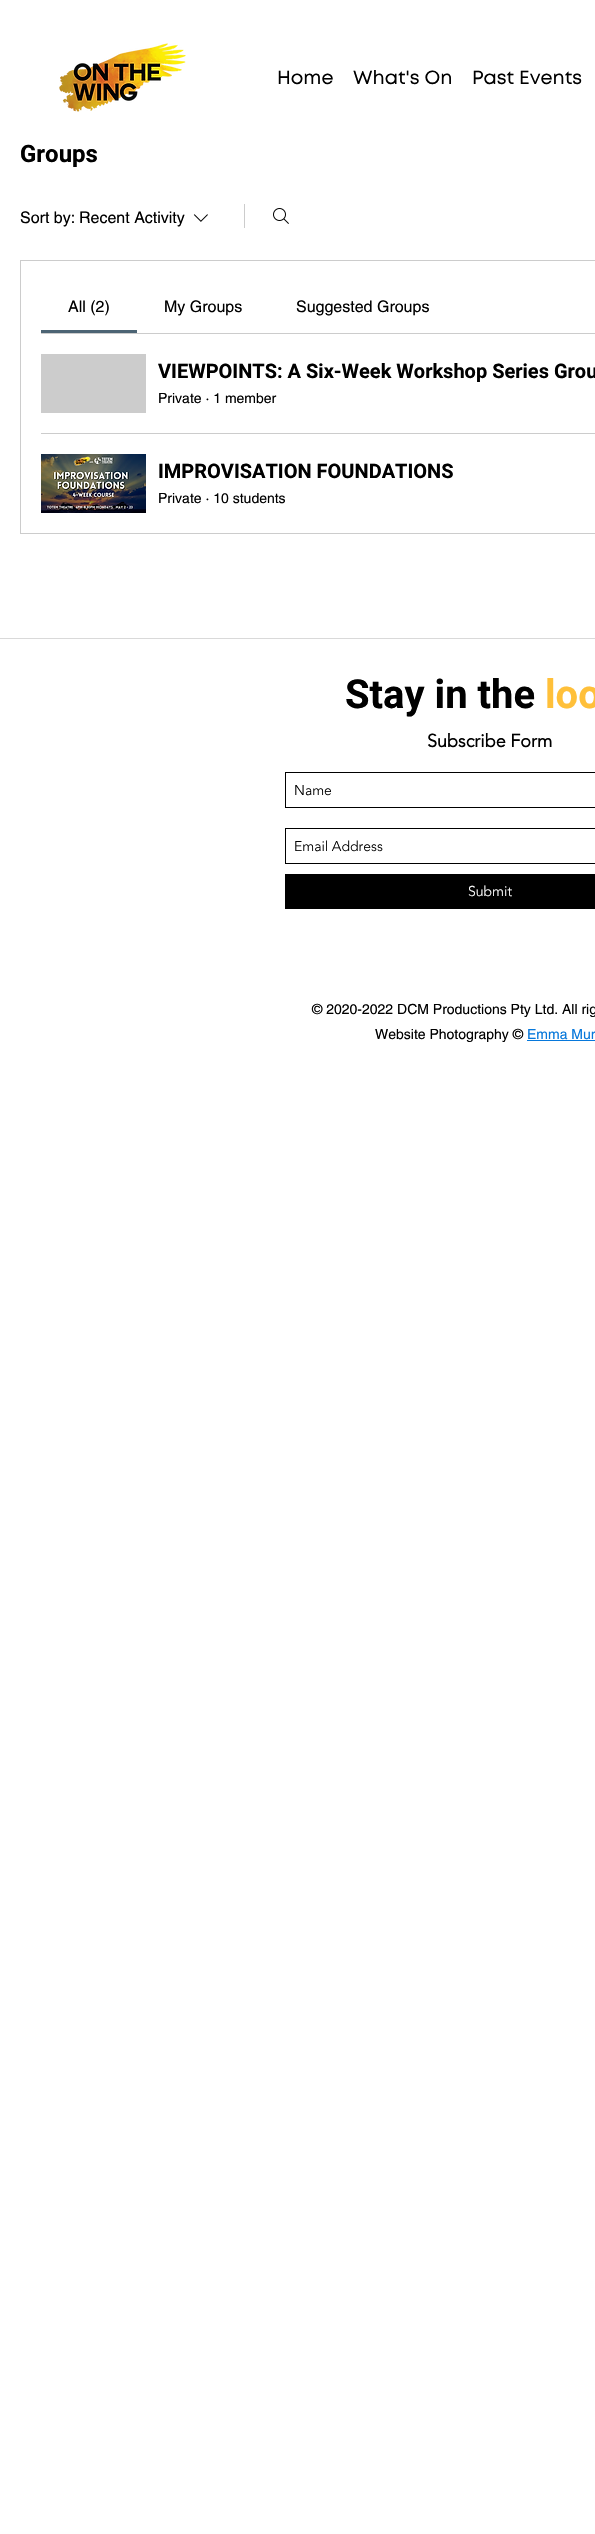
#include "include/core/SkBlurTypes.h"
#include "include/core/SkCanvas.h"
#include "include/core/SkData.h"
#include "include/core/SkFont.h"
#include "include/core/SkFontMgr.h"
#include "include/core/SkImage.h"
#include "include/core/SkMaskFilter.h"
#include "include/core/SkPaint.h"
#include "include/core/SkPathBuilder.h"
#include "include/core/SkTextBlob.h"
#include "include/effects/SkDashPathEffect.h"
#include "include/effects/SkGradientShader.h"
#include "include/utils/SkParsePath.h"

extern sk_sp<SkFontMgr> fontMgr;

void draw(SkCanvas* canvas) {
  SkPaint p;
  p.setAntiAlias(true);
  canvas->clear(SK_ColorWHITE);
  canvas->drawImageRect(SkImages::DeferredFromEncodedData(SkData::MakeFromFileName("images/1.png")), SkRect::MakeLTRB(59, 43, 186, 112), SkSamplingOptions());
  canvas->drawImageRect(SkImages::DeferredFromEncodedData(SkData::MakeFromFileName("images/2.png")), SkRect::MakeLTRB(193, 214, 208, 222), SkSamplingOptions());
  p.setColor(SkColorSetRGB(204, 204, 204));
  canvas->drawRect(SkRect::MakeLTRB(244, 204, 245, 228), p);
  canvas->drawImageRect(SkImages::DeferredFromEncodedData(SkData::MakeFromFileName("images/3.png")), SkRect::MakeLTRB(273, 208, 289, 224), SkSamplingOptions());
  p.setStyle(SkPaint::kStroke_Style);
  p.setStrokeWidth(1);
  canvas->drawRect(SkRect::MakeLTRB(20.5f, 260.5f, 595.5f, 533.5f), p);
  p.setStyle(SkPaint::kFill_Style);
  canvas->drawRect(SkRect::MakeLTRB(41, 333, 595, 334), p);
  p.setColor(SkColorSetRGB(76, 100, 116));
  canvas->drawRect(SkRect::MakeLTRB(41, 330, 137, 333), p);
  p.setColor(SkColorSetRGB(204, 204, 204));
  canvas->drawRect(SkRect::MakeLTRB(41, 354, 146, 413), p);
  canvas->drawRect(SkRect::MakeLTRB(41, 433, 595, 434), p);
  canvas->drawImageRect(SkImages::DeferredFromEncodedData(SkData::MakeFromFileName("images/4.png")), SkRect::MakeLTRB(41, 454, 146, 513), SkSamplingOptions());
  p.setColor(SkColorSetRGB(217, 217, 217));
  canvas->drawRect(SkRect::MakeLTRB(0, 638, 595, 639), p);
  p.setStyle(SkPaint::kStroke_Style);
  p.setColor(SK_ColorBLACK);
  canvas->drawRect(SkRect::MakeLTRB(285.5f, 772.5f, 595.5f, 807.5f), p);
  canvas->drawRect(SkRect::MakeLTRB(285.5f, 828.5f, 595.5f, 863.5f), p);
  p.setStyle(SkPaint::kFill_Style);
  canvas->drawRect(SkRect::MakeLTRB(285, 874, 595, 909), p);
  p.setColor(SkColorSetRGB(7, 120, 219));
  canvas->drawRect(SkRect::MakeLTRB(527, 1040, 595, 1041), p);
  SkFont font1(fontMgr->matchFamilyStyle("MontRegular", SkFontStyle::Normal()), 19);
  font1.setSubpixel(true);
  p.setColor(SK_ColorBLACK);
  canvas->drawString("Home", 277, 84, font1, p);
  canvas->drawString("What's On", 353, 84, font1, p);
  canvas->drawString("Past Events", 472, 84, font1, p);
  SkFont font2(fontMgr->matchFamilyStyle("Roboto", SkFontStyle::Bold()), 24);
  font2.setSubpixel(true);
  canvas->drawString("Groups", 20, 162, font2, p);
  SkFont font3(fontMgr->matchFamilyStyle("helvetica", SkFontStyle::Normal()), 16);
  font3.setSubpixel(true);
  canvas->drawString("Sort by:", 20, 223, font3, p);
  canvas->drawString("Recent Activity", 79, 223, font3, p);
  canvas->drawString("All (2)", 68, 312, font3, p);
  canvas->drawString("My Groups", 164, 312, font3, p);
  canvas->drawString("Suggested Groups", 296, 312, font3, p);
  SkFont font4(fontMgr->matchFamilyStyle("Roboto", SkFontStyle::Bold()), 20);
  font4.setSubpixel(true);
  canvas->drawString("VIEWPOINTS: A Six-Week Workshop Series Grou", 158, 378, font4, p);
  SkFont font5(fontMgr->matchFamilyStyle("helvetica", SkFontStyle::Normal()), 14);
  font5.setSubpixel(true);
  canvas->drawString("Private · 1 member", 158, 403, font5, p);
  canvas->drawString("IMPROVISATION FOUNDATIONS", 158, 478, font4, p);
  canvas->drawString("Private · 10 students", 158, 503, font5, p);
  SkFont font6(fontMgr->matchFamilyStyle("Roboto", SkFontStyle::Bold()), 40);
  font6.setSubpixel(true);
  canvas->drawString("Stay in the", 345, 708, font6, p);
  p.setColor(SkColorSetRGB(255, 192, 58));
  canvas->drawString("loo", 545, 708, font6, p);
  SkFont font7(fontMgr->matchFamilyStyle("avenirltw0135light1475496", SkFontStyle::Bold()), 18);
  font7.setSubpixel(true);
  p.setColor(SK_ColorBLACK);
  canvas->drawString("Subscribe Form", 427, 747, font7, p);
  SkFont font8(fontMgr->matchFamilyStyle("avenirltw0135light1475496", SkFontStyle(300, SkFontStyle::kNormal_Width, SkFontStyle::kUpright_Slant)), 14);
  font8.setSubpixel(true);
  canvas->drawString("Name", 294, 795, font8, p);
  canvas->drawString("Email Address", 294, 851, font8, p);
  p.setColor(SK_ColorWHITE);
  canvas->drawString("Submit", 468, 896, font8, p);
  p.setColor(SK_ColorBLACK);
  canvas->drawString("© 2020-2022 DCM Productions Pty Ltd. All rig", 312, 1014, font5, p);
  canvas->drawString("Website Photography ©", 375, 1039, font5, p);
  p.setColor(SkColorSetRGB(7, 120, 219));
  canvas->drawString("Emma Mur", 527, 1039, font5, p);
}
